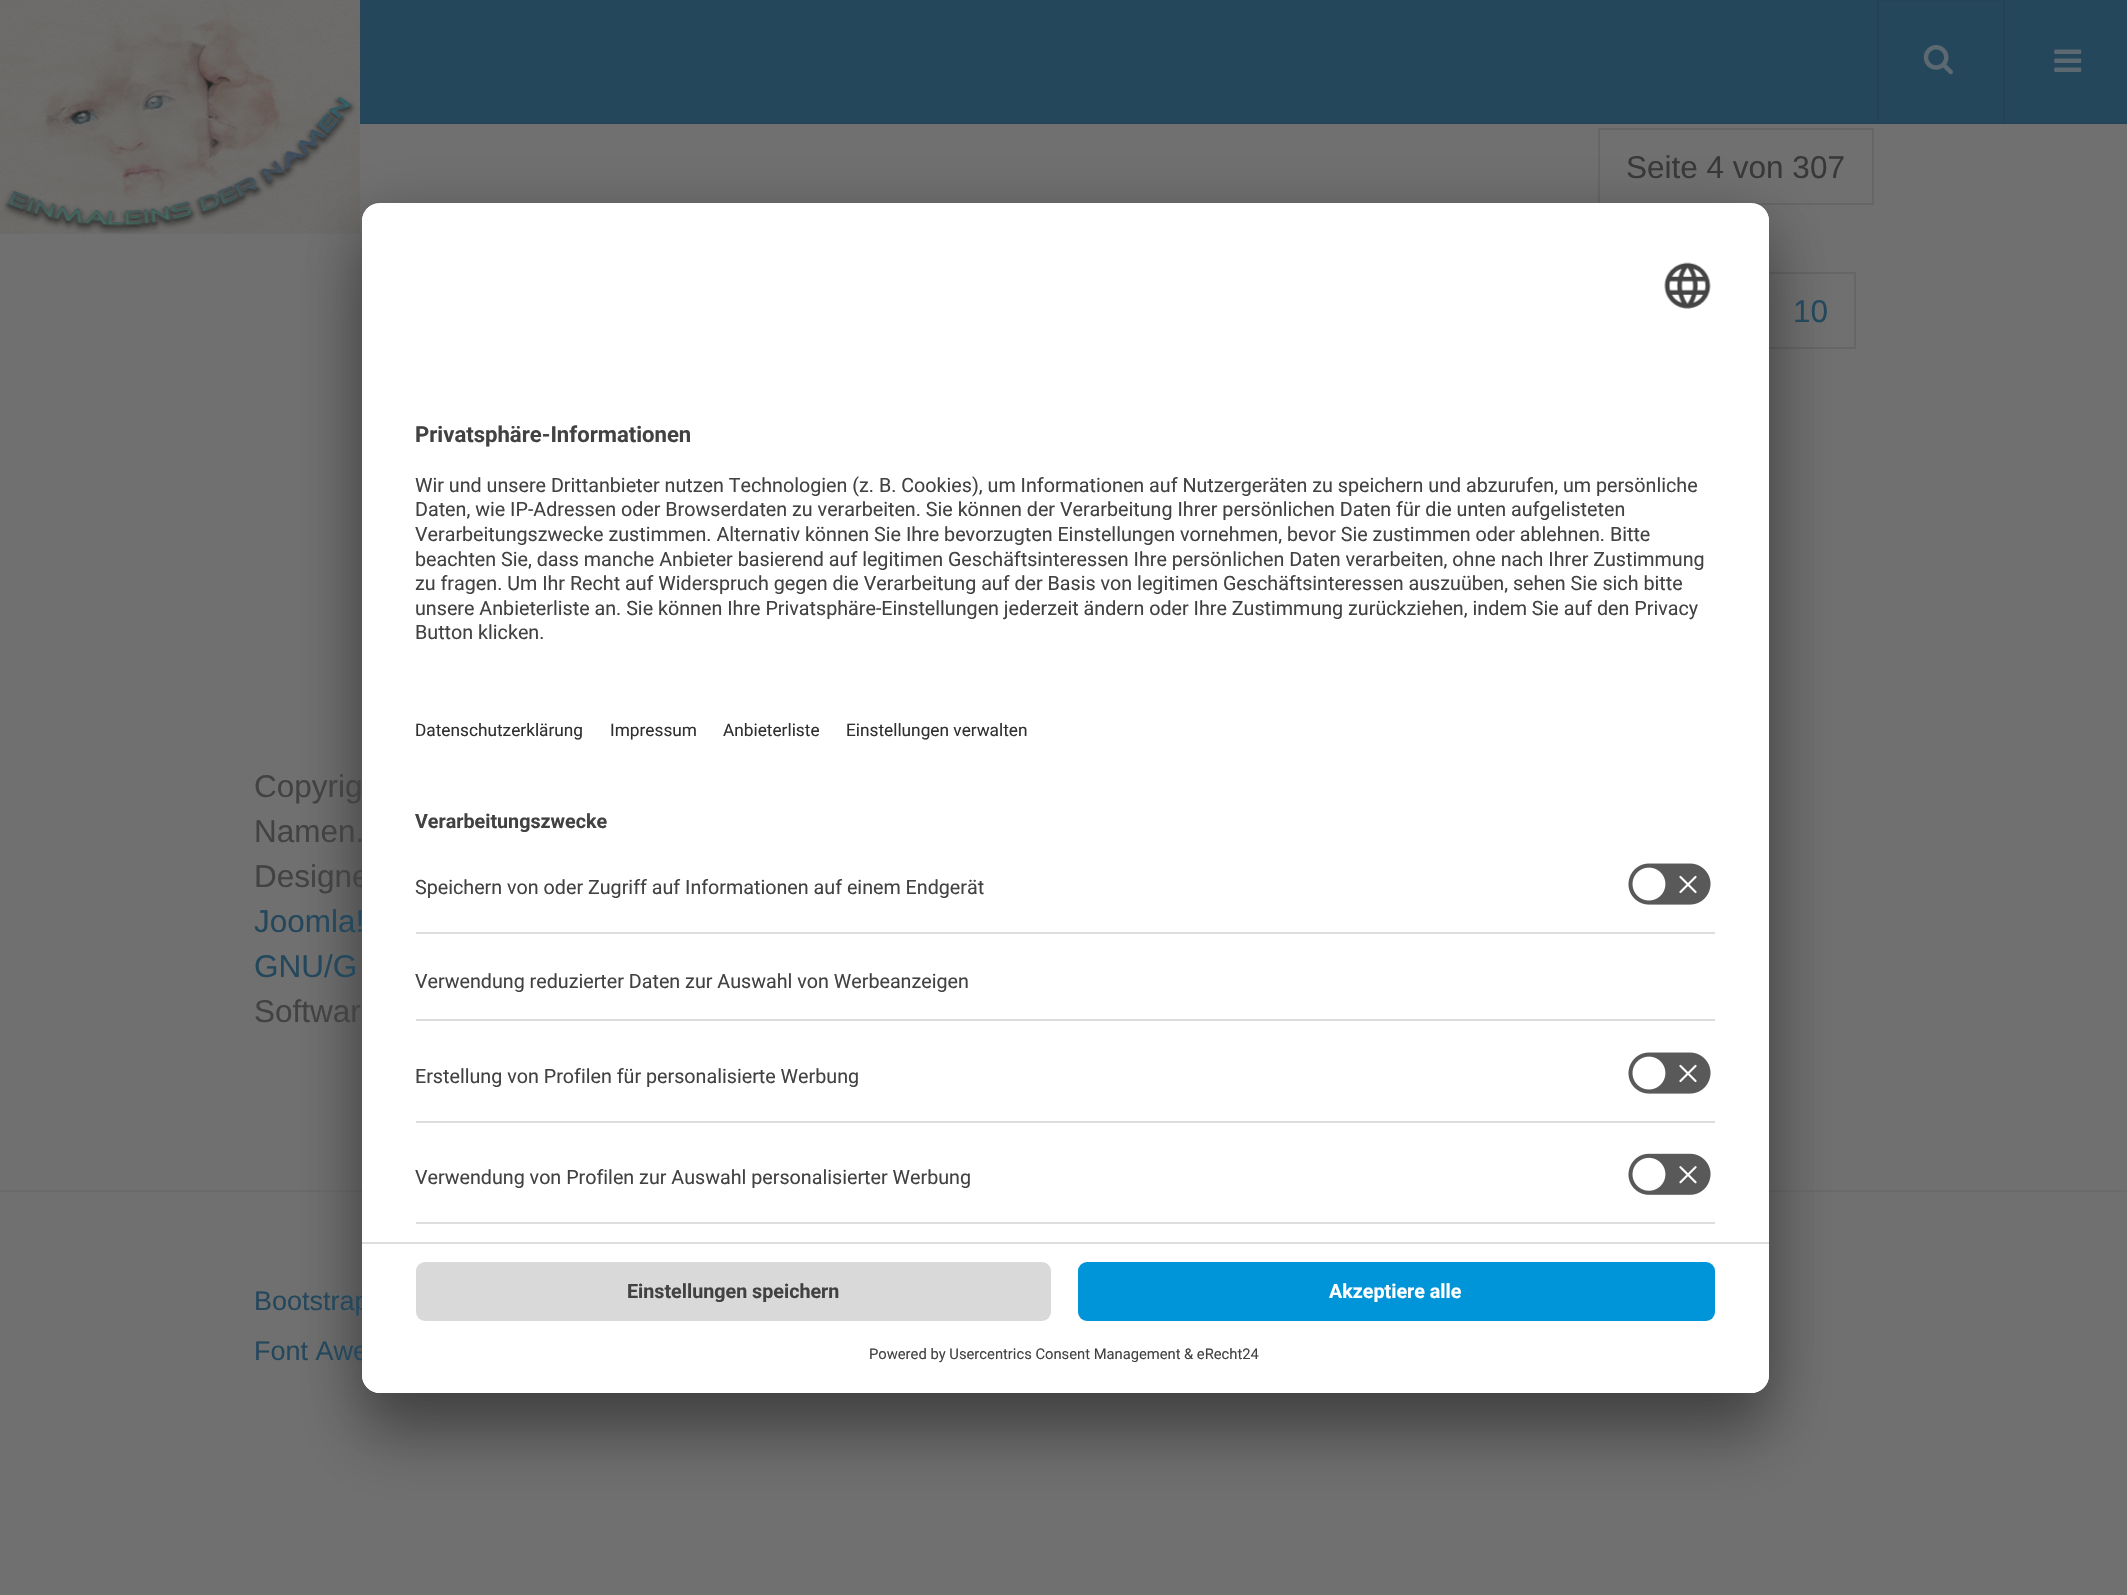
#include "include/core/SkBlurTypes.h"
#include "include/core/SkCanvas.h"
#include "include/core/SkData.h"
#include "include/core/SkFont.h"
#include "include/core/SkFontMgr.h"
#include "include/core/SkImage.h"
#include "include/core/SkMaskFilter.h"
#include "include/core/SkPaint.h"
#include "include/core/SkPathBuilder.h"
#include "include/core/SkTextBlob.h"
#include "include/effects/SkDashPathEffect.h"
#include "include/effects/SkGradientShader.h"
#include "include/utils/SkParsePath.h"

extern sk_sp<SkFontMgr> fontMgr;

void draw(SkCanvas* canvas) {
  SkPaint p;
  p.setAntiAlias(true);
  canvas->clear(SkColorSetRGB(112, 112, 112));
  p.setColor(SkColorSetRGB(36, 71, 92));
  canvas->drawRect(SkRect::MakeLTRB(360, 0, 2127, 122), p);
  p.setColor(SkColorSetRGB(36, 67, 84));
  canvas->drawRect(SkRect::MakeLTRB(360, 122, 2127, 124), p);
  canvas->drawImageRect(SkImages::DeferredFromEncodedData(SkData::MakeFromFileName("images/1.png")), SkRect::MakeLTRB(0, 0, 360, 234), SkSamplingOptions());
  canvas->drawRect(SkRect::MakeLTRB(2003, 0, 2005, 122), p);
  canvas->drawRect(SkRect::MakeLTRB(1877, 0, 1879, 122), p);
  p.setColor(SkColorSetRGB(36, 69, 88));
  canvas->drawRect(SkRect::MakeLTRB(1879, 0, 2003, 2), p);
  canvas->drawImageRect(SkImages::DeferredFromEncodedData(SkData::MakeFromFileName("images/2.png")), SkRect::MakeLTRB(1923, 45, 1953, 75), SkSamplingOptions());
  canvas->drawImageRect(SkImages::DeferredFromEncodedData(SkData::MakeFromFileName("images/3.png")), SkRect::MakeLTRB(2054, 49, 2082, 72), SkSamplingOptions());
  p.setStyle(SkPaint::kStroke_Style);
  p.setStrokeWidth(2);
  p.setColor(SkColorSetRGB(102, 102, 102));
  canvas->drawRect(SkRect::MakeLTRB(1599, 129, 1873, 204), p);
  canvas->drawRect(SkRect::MakeLTRB(1765, 273, 1855, 348), p);
  p.setStyle(SkPaint::kFill_Style);
  p.setColor(SkColorSetRGB(107, 107, 107));
  canvas->drawRect(SkRect::MakeLTRB(0, 1190, 2127, 1192), p);
  p.setColor(SkColorSetARGB(77, 0, 0, 0));
  p.setMaskFilter(SkMaskFilter::MakeBlur(kNormal_SkBlurStyle, 31.5f));
  canvas->drawRoundRect(SkRect::MakeLTRB(362, 248, 1769, 1438), 18, 18, p);
  p.setMaskFilter(nullptr);
  p.setColor(SkColorSetARGB(56, 0, 0, 0));
  p.setMaskFilter(SkMaskFilter::MakeBlur(kNormal_SkBlurStyle, 29));
  canvas->drawRoundRect(SkRect::MakeLTRB(362, 214, 1769, 1404), 18, 18, p);
  p.setMaskFilter(nullptr);
  SkFont font1(fontMgr->matchFamilyStyle("Liberation Sans", SkFontStyle::Normal()), 31.5f);
  font1.setSubpixel(true);
  p.setColor(SkColorSetRGB(56, 56, 56));
  canvas->drawString("Seite 4 von 307", 1626, 178, font1, p);
  p.setColor(SkColorSetRGB(36, 71, 92));
  canvas->drawString("10", 1793, 322, font1, p);
  p.setColor(SkColorSetRGB(66, 66, 66));
  canvas->drawString("Copyrig", 254, 797, font1, p);
  canvas->drawString("Namen.", 254, 842, font1, p);
  canvas->drawString("Designe", 254, 887, font1, p);
  p.setColor(SkColorSetRGB(36, 71, 92));
  canvas->drawString("Joomla!", 254, 932, font1, p);
  canvas->drawString("GNU/G", 254, 977, font1, p);
  p.setColor(SkColorSetRGB(66, 66, 66));
  canvas->drawString("Softwar", 254, 1022, font1, p);
  SkFont font2(fontMgr->matchFamilyStyle("Liberation Sans", SkFontStyle::Normal()), 27);
  font2.setSubpixel(true);
  p.setColor(SkColorSetRGB(36, 71, 92));
  canvas->drawString("Bootstrap", 254, 1310, font2, p);
  canvas->drawString("Font Awe", 254, 1360, font2, p);
  p.setColor(SK_ColorWHITE);
  canvas->drawRoundRect(SkRect::MakeLTRB(362, 203, 1769, 1393), 18, 18, p);
  canvas->save();
  canvas->clipPath(SkPathBuilder().moveTo(380, 203).lineTo(1751, 203).cubicTo(1761, 203, 1769, 211, 1769, 221).lineTo(1769, 1375).cubicTo(1769, 1385, 1761, 1393, 1751, 1393).lineTo(380, 1393).cubicTo(370, 1393, 362, 1385, 362, 1375).lineTo(362, 221).cubicTo(362, 211, 370, 203, 380, 203).close().detach(), true);
  canvas->clipPath(SkPathBuilder().moveTo(380, 203).lineTo(1751, 203).cubicTo(1761, 203, 1769, 211, 1769, 221).lineTo(1769, 1242).lineTo(362, 1242).lineTo(362, 221).cubicTo(362, 211, 370, 203, 380, 203).close().detach(), true);
  canvas->drawRect(SkRect::MakeLTRB(362, 205, 1769, 1242), p);
  canvas->drawRect(SkRect::MakeLTRB(362, 205, 1769, 783), p);
  canvas->restore();
  canvas->drawImageRect(SkImages::DeferredFromEncodedData(SkData::MakeFromFileName("images/4.png")), SkRect::MakeLTRB(1664, 262, 1711, 309), SkSamplingOptions());
  SkFont font3(fontMgr->matchFamilyStyle("Roboto", SkFontStyle::Bold()), 22.1f);
  font3.setSubpixel(true);
  p.setColor(SkColorSetRGB(66, 66, 66));
  canvas->drawString("Privatsphäre-Informationen", 415, 442, font3, p);
  SkFont font4(fontMgr->matchFamilyStyle("Roboto", SkFontStyle::Normal()), 19.7f);
  font4.setSubpixel(true);
  canvas->drawString("Wir und unsere Drittanbieter nutzen Technologien (z. B. Cookies), um Informationen auf Nutzergeräten zu speichern und abzurufen, um persönliche", 415, 492, font4, p);
  canvas->drawString("Daten, wie IP-Adressen oder Browserdaten zu verarbeiten. Sie können der Verarbeitung Ihrer persönlichen Daten für die unten aufgelisteten", 415, 516, font4, p);
  canvas->drawString("Verarbeitungszwecke zustimmen. Alternativ können Sie Ihre bevorzugten Einstellungen vornehmen, bevor Sie zustimmen oder ablehnen. Bitte", 415, 541, font4, p);
  canvas->drawString("beachten Sie, dass manche Anbieter basierend auf legitimen Geschäftsinteressen Ihre persönlichen Daten verarbeiten, ohne nach Ihrer Zustimmung", 415, 566, font4, p);
  canvas->drawString("zu fragen. Um Ihr Recht auf Widerspruch gegen die Verarbeitung auf der Basis von legitimen Geschäftsinteressen auszuüben, sehen Sie sich bitte", 415, 590, font4, p);
  canvas->drawString("unsere Anbieterliste an. Sie können Ihre Privatsphäre-Einstellungen jederzeit ändern oder Ihre Zustimmung zurückziehen, indem Sie auf den Privacy", 415, 615, font4, p);
  canvas->drawString("Button klicken.", 415, 639, font4, p);
  SkFont font5(fontMgr->matchFamilyStyle("Roboto", SkFontStyle::Normal()), 17.25f);
  font5.setSubpixel(true);
  p.setColor(SkColorSetRGB(48, 48, 48));
  canvas->drawString("Datenschutzerklärung", 415, 736, font5, p);
  canvas->drawString("Impressum", 610, 736, font5, p);
  canvas->drawString("Anbieterliste", 723, 736, font5, p);
  canvas->drawString("Einstellungen verwalten", 846, 736, font5, p);
  SkFont font6(fontMgr->matchFamilyStyle("Roboto", SkFontStyle::Bold()), 19.7f);
  font6.setSubpixel(true);
  p.setColor(SkColorSetRGB(66, 66, 66));
  canvas->drawString("Verarbeitungszwecke", 415, 828, font6, p);
  p.setColor(SkColorSetRGB(221, 221, 221));
  canvas->drawRect(SkRect::MakeLTRB(416, 932, 1715, 934), p);
  p.setColor(SkColorSetRGB(66, 66, 66));
  canvas->drawString("Speichern von oder Zugriff auf Informationen auf einem Endgerät", 415, 894, font4, p);
  canvas->drawImageRect(SkImages::DeferredFromEncodedData(SkData::MakeFromFileName("images/5.png")), SkRect::MakeLTRB(1628, 863, 1711, 905), SkSamplingOptions());
  p.setColor(SkColorSetRGB(221, 221, 221));
  canvas->drawRect(SkRect::MakeLTRB(416, 1019, 1715, 1021), p);
  p.setColor(SkColorSetRGB(66, 66, 66));
  canvas->drawString("Verwendung reduzierter Daten zur Auswahl von Werbeanzeigen", 415, 988, font4, p);
  p.setColor(SkColorSetRGB(221, 221, 221));
  canvas->drawRect(SkRect::MakeLTRB(416, 1121, 1715, 1123), p);
  p.setColor(SkColorSetRGB(66, 66, 66));
  canvas->drawString("Erstellung von Profilen für personalisierte Werbung", 415, 1083, font4, p);
  canvas->drawImageRect(SkImages::DeferredFromEncodedData(SkData::MakeFromFileName("images/5.png")), SkRect::MakeLTRB(1628, 1052, 1711, 1094), SkSamplingOptions());
  p.setColor(SkColorSetRGB(221, 221, 221));
  canvas->drawRect(SkRect::MakeLTRB(416, 1222, 1715, 1224), p);
  p.setColor(SkColorSetRGB(66, 66, 66));
  canvas->drawString("Verwendung von Profilen zur Auswahl personalisierter Werbung", 415, 1184, font4, p);
  canvas->drawImageRect(SkImages::DeferredFromEncodedData(SkData::MakeFromFileName("images/6.png")), SkRect::MakeLTRB(1628, 1153, 1711, 1195), SkSamplingOptions());
  p.setColor(SK_ColorWHITE);
  canvas->drawPath(SkPathBuilder().moveTo(362, 1242).lineTo(1769, 1242).lineTo(1769, 1375).cubicTo(1769, 1385, 1761, 1393, 1751, 1393).lineTo(380, 1393).cubicTo(370, 1393, 362, 1385, 362, 1375).close().detach(), p);
  p.setColor(SkColorSetRGB(221, 221, 221));
  canvas->drawRect(SkRect::MakeLTRB(362, 1242, 1769, 1244), p);
  p.setColor(SkColorSetRGB(217, 217, 217));
  canvas->drawRoundRect(SkRect::MakeLTRB(416, 1262, 1051, 1321), 9, 9, p);
  p.setColor(SkColorSetRGB(66, 66, 66));
  canvas->drawString("Einstellungen speichern", 627, 1298, font6, p);
  p.setColor(SkColorSetRGB(0, 148, 216));
  canvas->drawRoundRect(SkRect::MakeLTRB(1078, 1262, 1715, 1321), 9, 9, p);
  p.setColor(SK_ColorWHITE);
  canvas->drawString("Akzeptiere alle", 1329, 1298, font6, p);
  SkFont font7(fontMgr->matchFamilyStyle("Roboto", SkFontStyle::Normal()), 14.75f);
  font7.setSubpixel(true);
  p.setColor(SkColorSetRGB(66, 66, 66));
  canvas->drawString("Powered by Usercentrics Consent Management", 869, 1359, font7, p);
  canvas->drawString("& eRecht24", 1184, 1359, font7, p);
}
